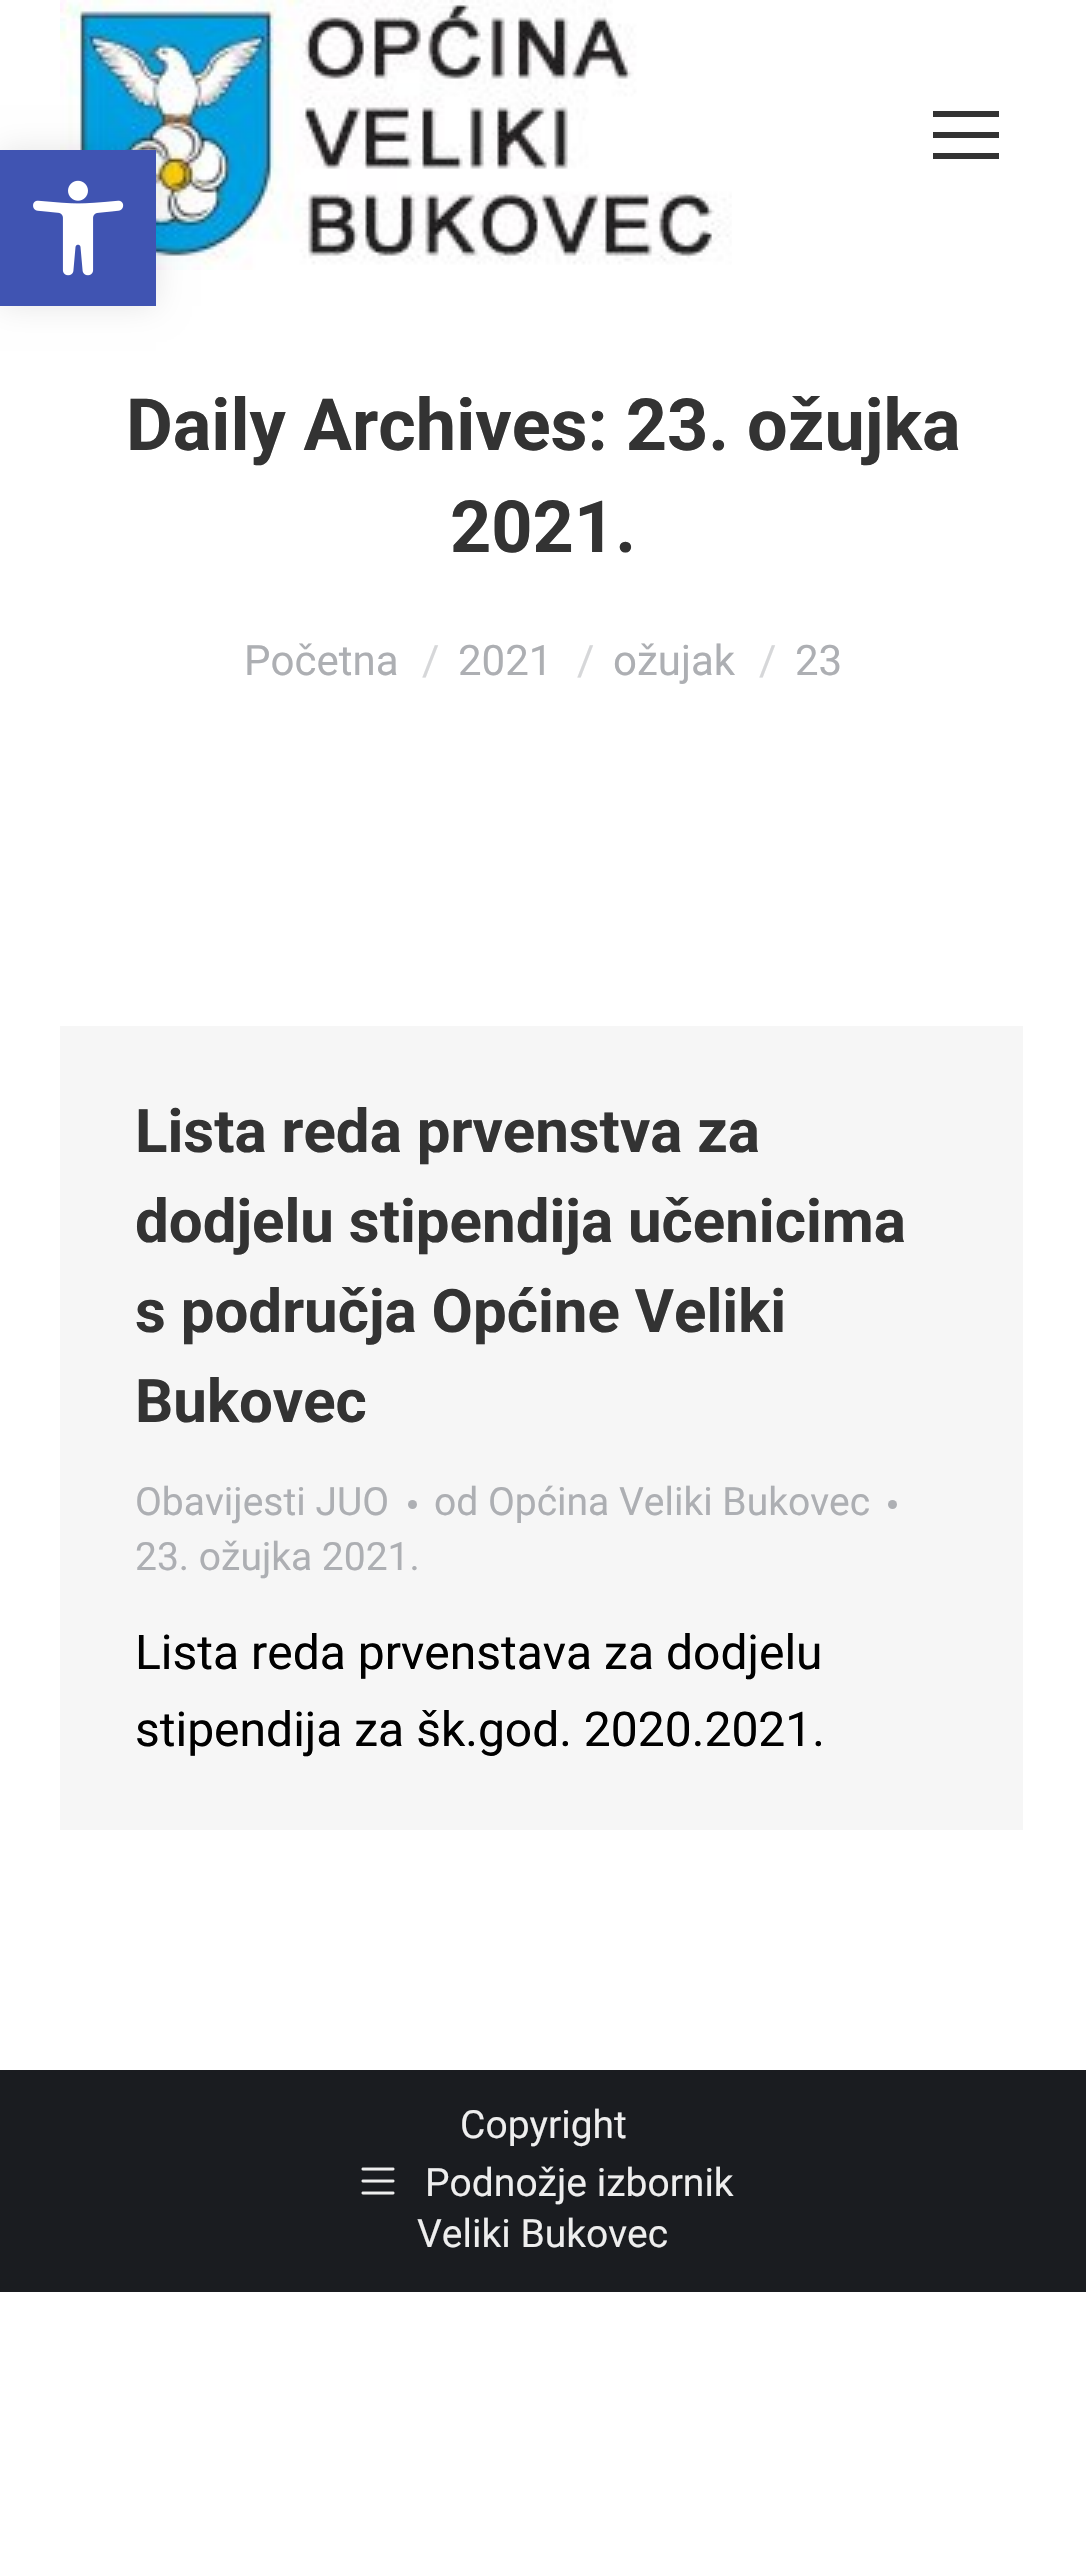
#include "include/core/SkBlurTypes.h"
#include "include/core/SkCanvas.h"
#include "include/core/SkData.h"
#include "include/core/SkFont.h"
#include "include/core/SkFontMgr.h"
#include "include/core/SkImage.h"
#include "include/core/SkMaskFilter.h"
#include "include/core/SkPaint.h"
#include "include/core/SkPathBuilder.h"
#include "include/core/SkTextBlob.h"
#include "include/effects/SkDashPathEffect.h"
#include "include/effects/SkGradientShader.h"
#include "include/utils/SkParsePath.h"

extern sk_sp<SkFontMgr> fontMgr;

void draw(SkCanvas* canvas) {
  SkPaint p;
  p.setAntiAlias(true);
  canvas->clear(SK_ColorWHITE);
  canvas->drawImageRect(SkImages::DeferredFromEncodedData(SkData::MakeFromFileName("images/2.png")), SkRect::MakeLTRB(60, 0, 732, 270), SkSamplingOptions());
  p.setColor(SkColorSetARGB(26, 0, 0, 0));
  p.setMaskFilter(SkMaskFilter::MakeBlur(kNormal_SkBlurStyle, 15));
  canvas->drawRect(SkRect::MakeLTRB(0, 150, 156, 306), p);
  p.setMaskFilter(nullptr);
  p.setColor(SkColorSetRGB(64, 84, 178));
  canvas->drawRect(SkRect::MakeLTRB(0, 150, 156, 306), p);
  canvas->drawImageRect(SkImages::DeferredFromEncodedData(SkData::MakeFromFileName("images/1.png")), SkRect::MakeLTRB(33, 180, 124, 276), SkSamplingOptions());
  p.setColor(SkColorSetRGB(51, 51, 51));
  canvas->drawRect(SkRect::MakeLTRB(933, 111, 999, 117), p);
  canvas->drawRect(SkRect::MakeLTRB(933, 132, 999, 138), p);
  canvas->drawRect(SkRect::MakeLTRB(933, 153, 999, 159), p);
  p.setColor(SkColorSetRGB(246, 246, 246));
  canvas->drawRect(SkRect::MakeLTRB(60, 1026, 1023, 1830), p);
  p.setColor(SkColorSetRGB(173, 175, 179));
  canvas->drawCircle(412.5f, 1504.5f, 4.5f, p);
  canvas->drawCircle(892.5f, 1504.5f, 4.5f, p);
  p.setColor(SkColorSetRGB(26, 28, 32));
  canvas->drawRect(SkRect::MakeLTRB(0, 2070, 1086, 2292), p);
  canvas->drawImageRect(SkImages::DeferredFromEncodedData(SkData::MakeFromFileName("images/3.png")), SkRect::MakeLTRB(361, 2167, 395, 2195), SkSamplingOptions());
  SkFont font1(fontMgr->matchFamilyStyle("Roboto", SkFontStyle::Bold()), 72);
  font1.setSubpixel(true);
  p.setColor(SkColorSetRGB(51, 51, 51));
  canvas->drawString("Daily Archives: 23. ožujka", 126, 450, font1, p);
  canvas->drawString("2021.", 450, 552, font1, p);
  SkFont font2(fontMgr->matchFamilyStyle("Roboto", SkFontStyle::Normal()), 42);
  font2.setSubpixel(true);
  p.setColor(SkColorSetRGB(173, 175, 179));
  canvas->drawString("Početna", 244, 675, font2, p);
  p.setColor(SkColorSetRGB(214, 215, 217));
  canvas->drawString("/", 422, 675, font2, p);
  p.setColor(SkColorSetRGB(173, 175, 179));
  canvas->drawString("2021", 458, 675, font2, p);
  p.setColor(SkColorSetRGB(214, 215, 217));
  canvas->drawString("/", 577, 675, font2, p);
  p.setColor(SkColorSetRGB(173, 175, 179));
  canvas->drawString("ožujak", 613, 675, font2, p);
  p.setColor(SkColorSetRGB(214, 215, 217));
  canvas->drawString("/", 759, 675, font2, p);
  p.setColor(SkColorSetRGB(173, 175, 179));
  canvas->drawString("23", 795, 675, font2, p);
  SkFont font3(fontMgr->matchFamilyStyle("Roboto", SkFontStyle::Bold()), 60);
  font3.setSubpixel(true);
  p.setColor(SkColorSetRGB(51, 51, 51));
  canvas->drawString("Lista reda prvenstva za", 135, 1152, font3, p);
  canvas->drawString("dodjelu stipendija učenicima", 135, 1242, font3, p);
  canvas->drawString("s područja Općine Veliki", 135, 1332, font3, p);
  canvas->drawString("Bukovec", 135, 1422, font3, p);
  SkFont font4(fontMgr->matchFamilyStyle("Roboto", SkFontStyle::Normal()), 39);
  font4.setSubpixel(true);
  p.setColor(SkColorSetRGB(173, 175, 179));
  canvas->drawString("Obavijesti JUO", 135, 1515, font4, p);
  canvas->drawString("od Općina Veliki Bukovec", 434, 1515, font4, p);
  canvas->drawString("23. ožujka 2021.", 135, 1570, font4, p);
  SkFont font5(fontMgr->matchFamilyStyle("Roboto", SkFontStyle::Normal()), 48);
  font5.setSubpixel(true);
  p.setColor(SK_ColorBLACK);
  canvas->drawString("Lista reda prvenstava za dodjelu", 135, 1669, font5, p);
  canvas->drawString("stipendija za šk.god. 2020.2021.", 135, 1746, font5, p);
  p.setColor(SkColorSetRGB(238, 238, 238));
  canvas->drawString("Copyright", 460, 2138, font4, p);
  canvas->drawString("Podnožje izbornik", 425, 2196, font4, p);
  canvas->drawString("Veliki Bukovec", 417, 2247, font4, p);
}
